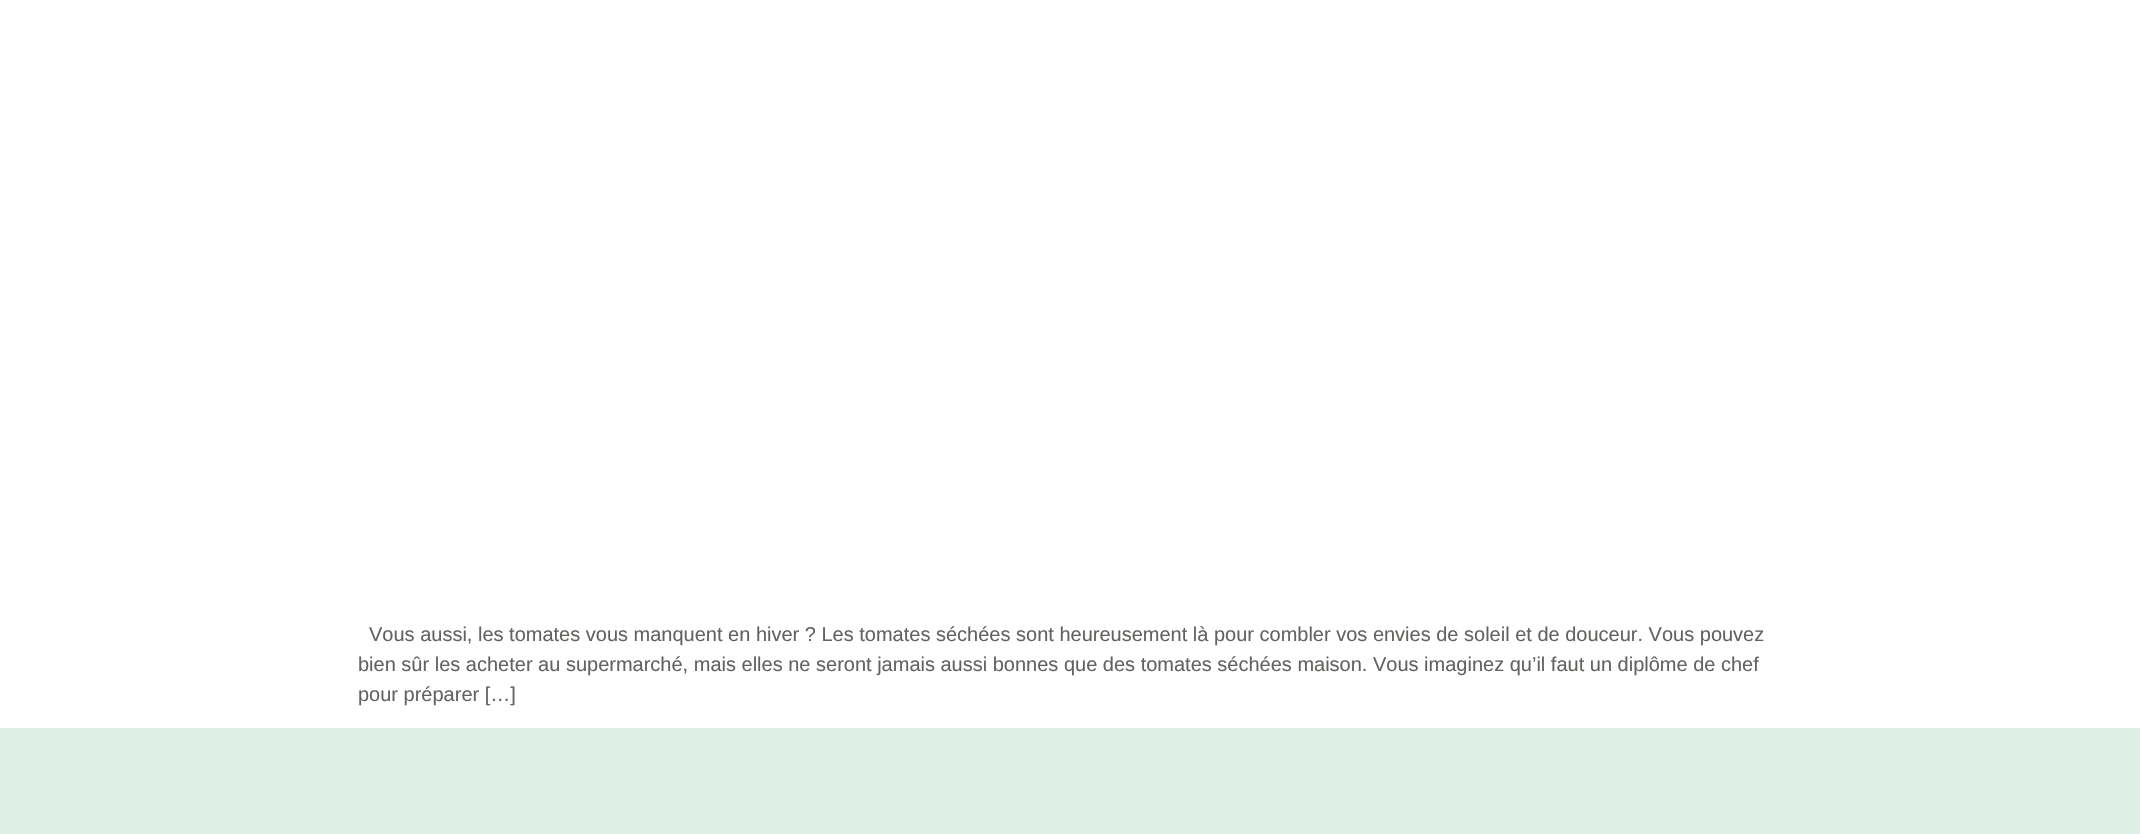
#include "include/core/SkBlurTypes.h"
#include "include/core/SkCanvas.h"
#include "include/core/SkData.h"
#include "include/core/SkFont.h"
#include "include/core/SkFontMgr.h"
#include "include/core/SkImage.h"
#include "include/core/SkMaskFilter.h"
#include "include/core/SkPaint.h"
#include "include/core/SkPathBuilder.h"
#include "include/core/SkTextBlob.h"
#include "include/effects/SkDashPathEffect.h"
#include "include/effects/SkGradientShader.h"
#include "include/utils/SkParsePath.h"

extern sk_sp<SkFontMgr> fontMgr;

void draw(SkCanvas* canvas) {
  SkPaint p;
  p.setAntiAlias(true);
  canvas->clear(SK_ColorWHITE);
  p.setColor(SkColorSetRGB(222, 240, 229));
  canvas->drawRect(SkRect::MakeLTRB(0, 728, 2140, 834), p);
  SkFont font1(fontMgr->matchFamilyStyle("Liberation Sans", SkFontStyle::Normal()), 20);
  font1.setSubpixel(true);
  p.setColor(SkColorSetRGB(98, 98, 95));
  canvas->drawString("Vous aussi, les tomates vous manquent en hiver ? Les tomates séchées sont heureusement là pour combler vos envies de soleil et de douceur. Vous pouvez", 369, 641, font1, p);
  canvas->drawString("bien sûr les acheter au supermarché, mais elles ne seront jamais aussi bonnes que des tomates séchées maison. Vous imaginez qu’il faut un diplôme de chef", 358, 671, font1, p);
  canvas->drawString("pour préparer […]", 358, 701, font1, p);
}
